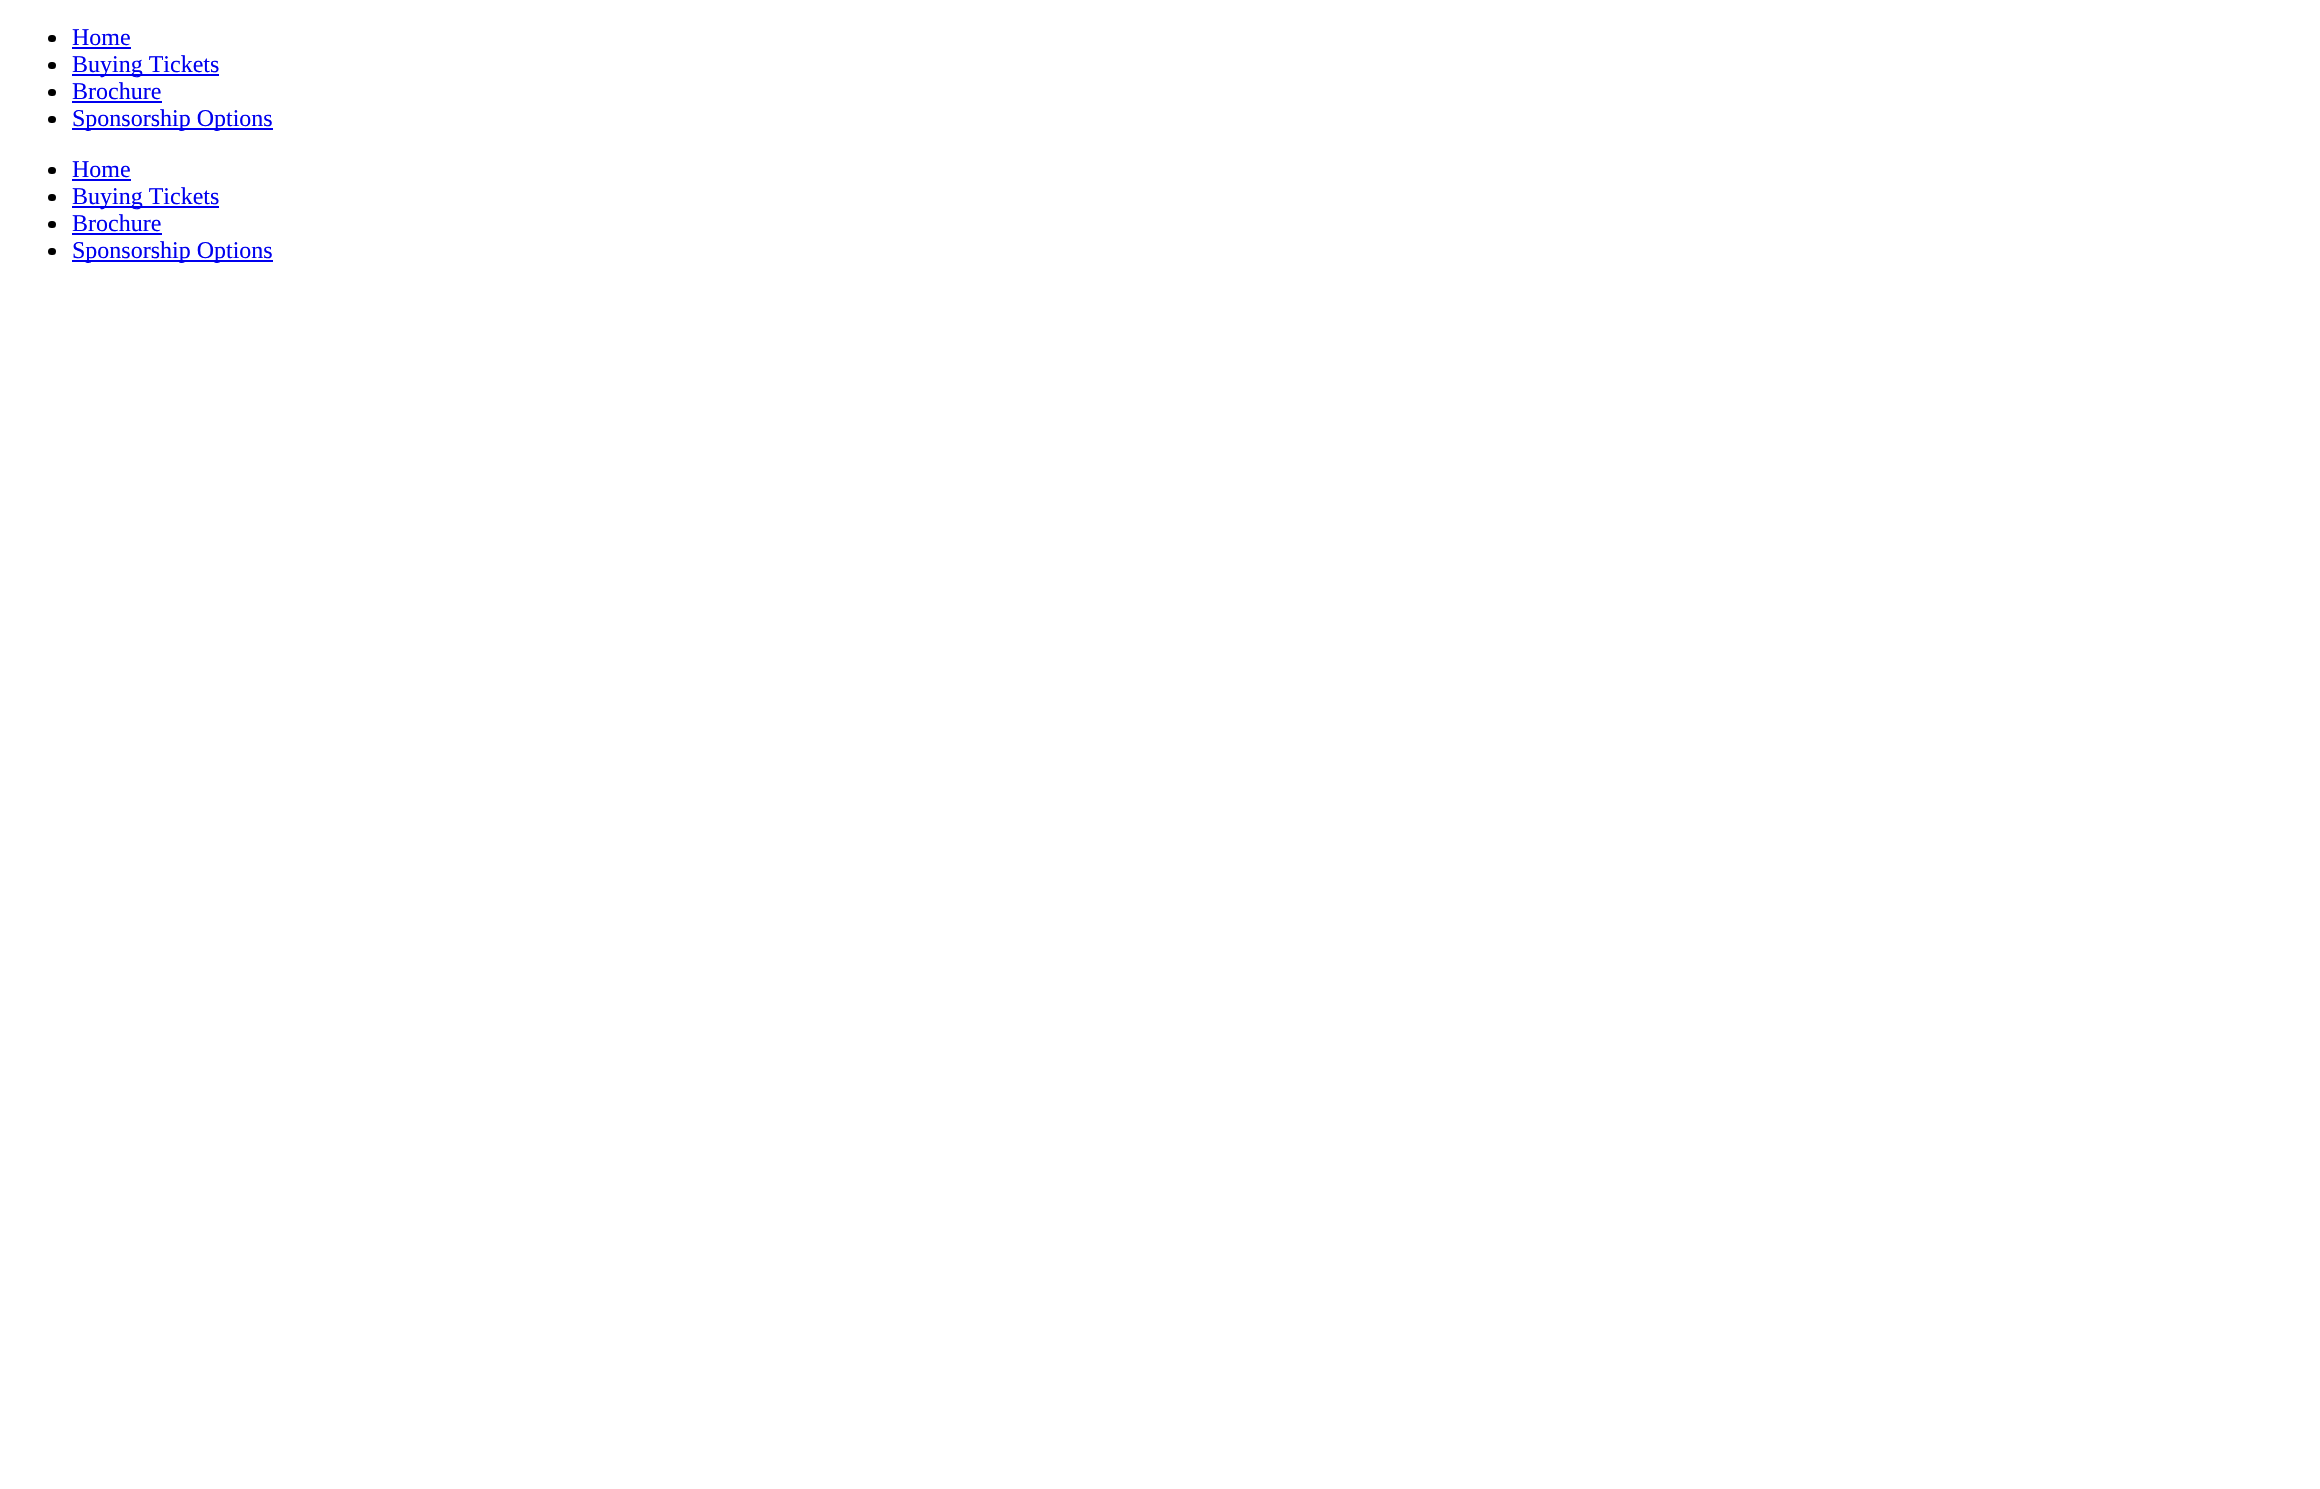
#include "include/core/SkBlurTypes.h"
#include "include/core/SkCanvas.h"
#include "include/core/SkData.h"
#include "include/core/SkFont.h"
#include "include/core/SkFontMgr.h"
#include "include/core/SkImage.h"
#include "include/core/SkMaskFilter.h"
#include "include/core/SkPaint.h"
#include "include/core/SkPathBuilder.h"
#include "include/core/SkTextBlob.h"
#include "include/effects/SkDashPathEffect.h"
#include "include/effects/SkGradientShader.h"
#include "include/utils/SkParsePath.h"

extern sk_sp<SkFontMgr> fontMgr;

void draw(SkCanvas* canvas) {
  SkPaint p;
  p.setAntiAlias(true);
  canvas->clear(SK_ColorWHITE);
  p.setColor(SK_ColorBLACK);
  canvas->drawRoundRect(SkRect::MakeLTRB(48, 35, 56, 42), 3.5f, 3.5f, p);
  p.setColor(SkColorSetRGB(0, 0, 238));
  canvas->drawRect(SkRect::MakeLTRB(72, 47, 131, 49), p);
  p.setColor(SK_ColorBLACK);
  canvas->drawRoundRect(SkRect::MakeLTRB(48, 62, 56, 69), 3.5f, 3.5f, p);
  p.setColor(SkColorSetRGB(0, 0, 238));
  canvas->drawRect(SkRect::MakeLTRB(72, 74, 219, 76), p);
  p.setColor(SK_ColorBLACK);
  canvas->drawRoundRect(SkRect::MakeLTRB(48, 89, 56, 96), 3.5f, 3.5f, p);
  p.setColor(SkColorSetRGB(0, 0, 238));
  canvas->drawRect(SkRect::MakeLTRB(72, 101, 162, 103), p);
  p.setColor(SK_ColorBLACK);
  canvas->drawRoundRect(SkRect::MakeLTRB(48, 116, 56, 123), 3.5f, 3.5f, p);
  p.setColor(SkColorSetRGB(0, 0, 238));
  canvas->drawRect(SkRect::MakeLTRB(72, 128, 273, 130), p);
  p.setColor(SK_ColorBLACK);
  canvas->drawRoundRect(SkRect::MakeLTRB(48, 167, 56, 174), 3.5f, 3.5f, p);
  p.setColor(SkColorSetRGB(0, 0, 238));
  canvas->drawRect(SkRect::MakeLTRB(72, 179, 131, 181), p);
  p.setColor(SK_ColorBLACK);
  canvas->drawRoundRect(SkRect::MakeLTRB(48, 194, 56, 201), 3.5f, 3.5f, p);
  p.setColor(SkColorSetRGB(0, 0, 238));
  canvas->drawRect(SkRect::MakeLTRB(72, 206, 219, 208), p);
  p.setColor(SK_ColorBLACK);
  canvas->drawRoundRect(SkRect::MakeLTRB(48, 221, 56, 228), 3.5f, 3.5f, p);
  p.setColor(SkColorSetRGB(0, 0, 238));
  canvas->drawRect(SkRect::MakeLTRB(72, 233, 162, 235), p);
  p.setColor(SK_ColorBLACK);
  canvas->drawRoundRect(SkRect::MakeLTRB(48, 248, 56, 255), 3.5f, 3.5f, p);
  p.setColor(SkColorSetRGB(0, 0, 238));
  canvas->drawRect(SkRect::MakeLTRB(72, 260, 273, 262), p);
  SkFont font1(fontMgr->matchFamilyStyle("Liberation Serif", SkFontStyle::Normal()), 24);
  font1.setSubpixel(true);
  canvas->drawString("Home", 72, 45, font1, p);
  canvas->drawString("Buying Tickets", 72, 72, font1, p);
  canvas->drawString("Brochure", 72, 99, font1, p);
  canvas->drawString("Sponsorship Options", 72, 126, font1, p);
  canvas->drawString("Home", 72, 177, font1, p);
  canvas->drawString("Buying Tickets", 72, 204, font1, p);
  canvas->drawString("Brochure", 72, 231, font1, p);
  canvas->drawString("Sponsorship Options", 72, 258, font1, p);
}
